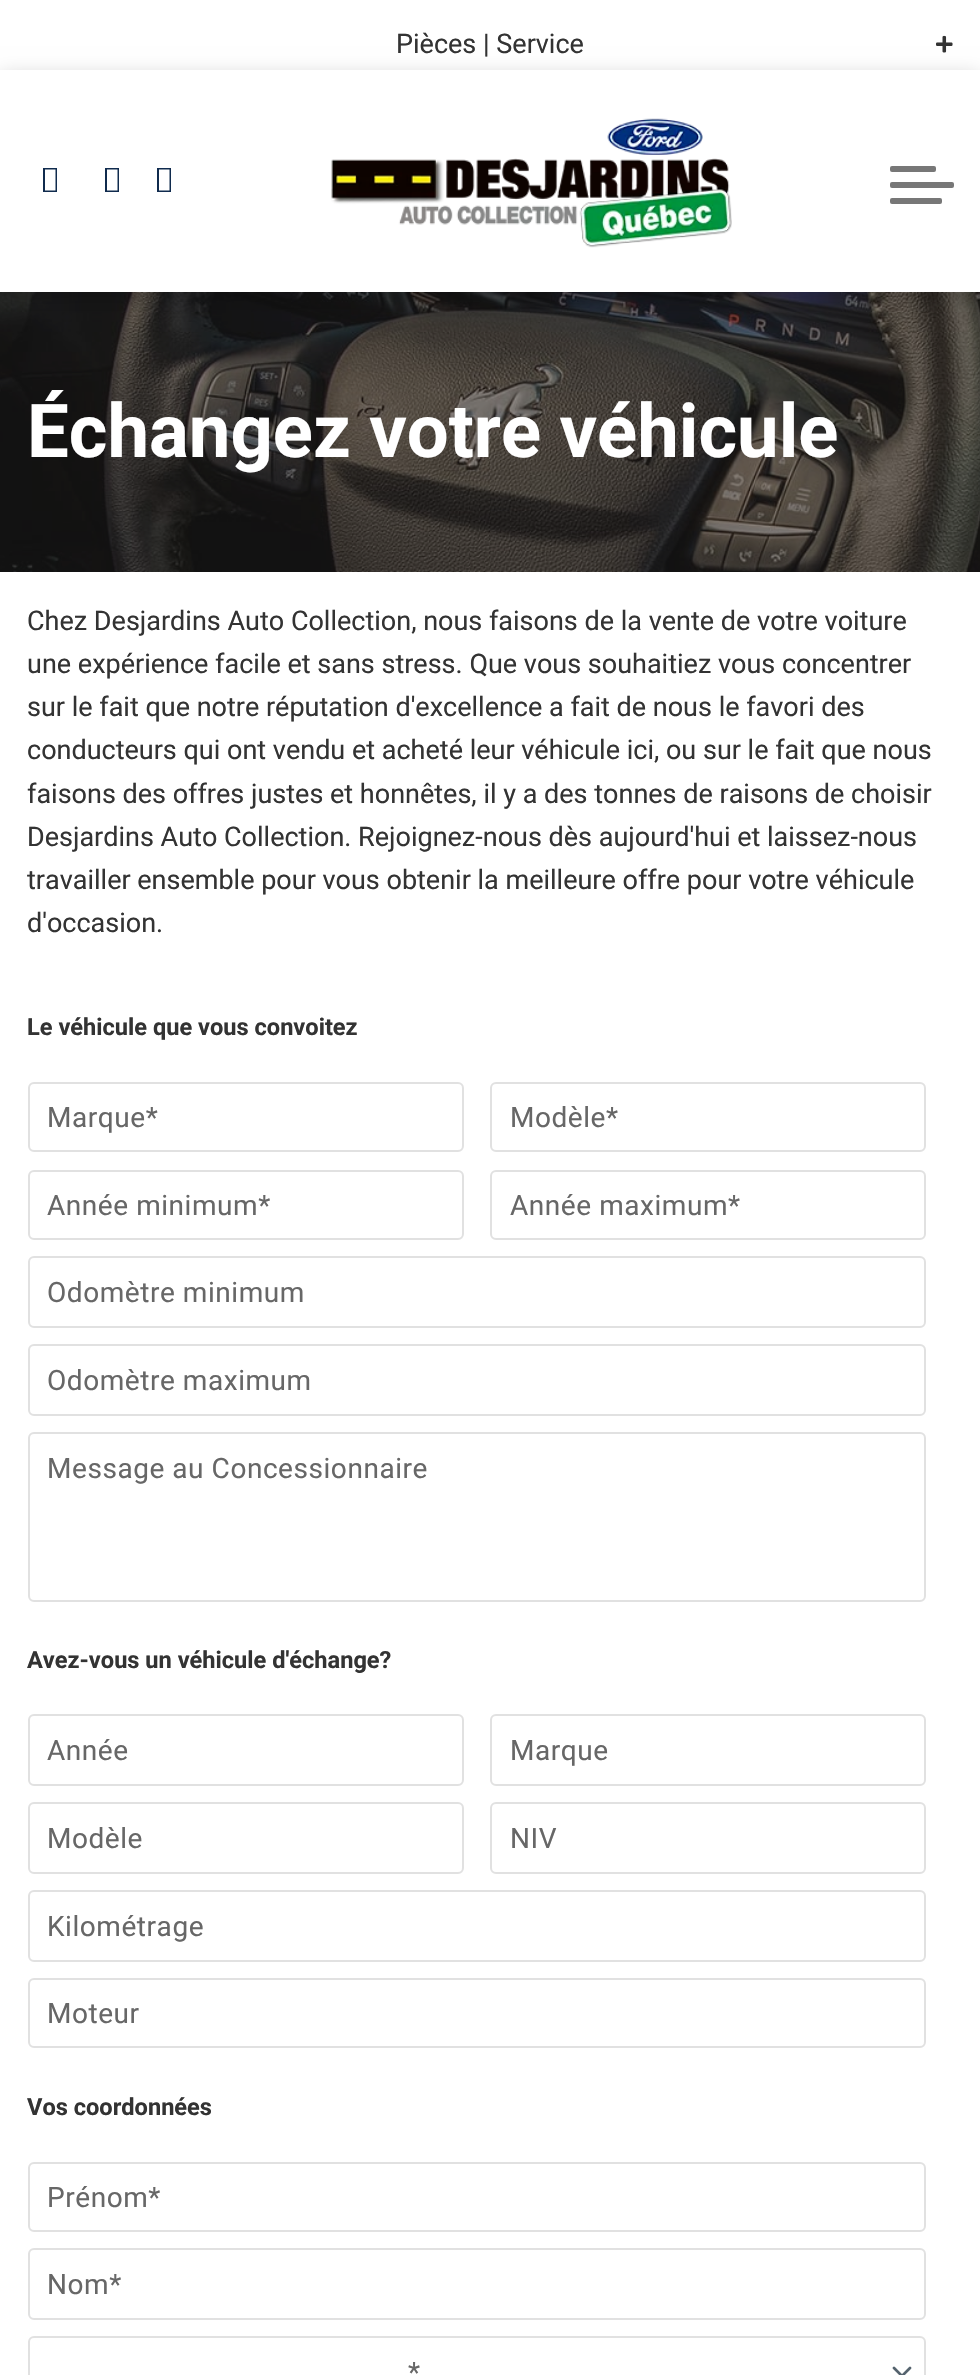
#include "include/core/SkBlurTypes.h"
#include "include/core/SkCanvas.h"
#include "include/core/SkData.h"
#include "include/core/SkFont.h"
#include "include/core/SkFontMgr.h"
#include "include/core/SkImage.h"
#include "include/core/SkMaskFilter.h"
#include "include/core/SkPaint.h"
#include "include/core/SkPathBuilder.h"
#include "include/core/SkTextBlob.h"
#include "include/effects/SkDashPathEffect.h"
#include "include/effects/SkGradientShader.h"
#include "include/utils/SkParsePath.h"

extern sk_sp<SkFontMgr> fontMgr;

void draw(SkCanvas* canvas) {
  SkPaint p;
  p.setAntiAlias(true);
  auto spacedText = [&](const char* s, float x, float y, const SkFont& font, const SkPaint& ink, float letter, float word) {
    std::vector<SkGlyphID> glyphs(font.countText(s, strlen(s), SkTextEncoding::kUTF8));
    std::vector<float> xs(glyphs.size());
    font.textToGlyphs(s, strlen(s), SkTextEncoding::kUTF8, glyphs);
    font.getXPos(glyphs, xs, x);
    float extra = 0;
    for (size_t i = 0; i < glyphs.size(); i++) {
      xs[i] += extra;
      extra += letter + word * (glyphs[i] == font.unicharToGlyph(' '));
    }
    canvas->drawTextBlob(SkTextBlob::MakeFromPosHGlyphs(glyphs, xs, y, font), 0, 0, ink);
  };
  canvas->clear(SK_ColorWHITE);
  canvas->drawImageRect(SkImages::DeferredFromEncodedData(SkData::MakeFromFileName("images/1.png")), SkRect::MakeLTRB(936, 35, 953, 53), SkSamplingOptions());
  canvas->drawImageRect(SkImages::DeferredFromEncodedData(SkData::MakeFromFileName("images/3.png")), SkRect::MakeLTRB(0, 292, 980, 572), SkSamplingOptions());
  p.setColor(SkColorSetARGB(51, 0, 0, 0));
  p.setMaskFilter(SkMaskFilter::MakeBlur(kNormal_SkBlurStyle, 10));
  canvas->drawRect(SkRect::MakeLTRB(0, 76, 980, 298), p);
  p.setMaskFilter(nullptr);
  p.setColor(SK_ColorWHITE);
  canvas->drawRect(SkRect::MakeLTRB(0, 70, 980, 292), p);
  p.setColor(SkColorSetRGB(16, 43, 78));
  canvas->drawPath(SkPathBuilder().moveTo(43, 192).lineTo(43, 168).lineTo(57, 168).lineTo(57, 192).close().moveTo(45, 190.5f).lineTo(55.5f, 190.5f).lineTo(55.5f, 169.5f).lineTo(45, 169.5f).close().detach(), p);
  canvas->drawPath(SkPathBuilder().moveTo(105, 192).lineTo(105, 168).lineTo(119, 168).lineTo(119, 192).close().moveTo(107, 190.5f).lineTo(117.5f, 190.5f).lineTo(117.5f, 169.5f).lineTo(107, 169.5f).close().detach(), p);
  canvas->drawPath(SkPathBuilder().moveTo(157, 192).lineTo(157, 168).lineTo(171, 168).lineTo(171, 192).close().moveTo(159, 190.5f).lineTo(169.5f, 190.5f).lineTo(169.5f, 169.5f).lineTo(159, 169.5f).close().detach(), p);
  canvas->drawImageRect(SkImages::DeferredFromEncodedData(SkData::MakeFromFileName("images/2.png")), SkRect::MakeLTRB(331, 118, 732, 248), SkSamplingOptions());
  p.setColor(SkColorSetRGB(119, 119, 119));
  canvas->drawRoundRect(SkRect::MakeLTRB(890, 182, 954, 188), 2, 2, p);
  canvas->drawRoundRect(SkRect::MakeLTRB(890, 166, 936, 172), 2, 2, p);
  canvas->drawRoundRect(SkRect::MakeLTRB(890, 198, 942, 204), 2, 2, p);
  p.setStyle(SkPaint::kStroke_Style);
  p.setStrokeWidth(2);
  p.setColor(SkColorSetRGB(225, 225, 225));
  canvas->drawRoundRect(SkRect::MakeLTRB(29, 1083, 463, 1151), 5, 5, p);
  canvas->drawRoundRect(SkRect::MakeLTRB(491, 1083, 925, 1151), 5, 5, p);
  canvas->drawRoundRect(SkRect::MakeLTRB(29, 1171, 463, 1239), 5, 5, p);
  canvas->drawRoundRect(SkRect::MakeLTRB(491, 1171, 925, 1239), 5, 5, p);
  canvas->drawRoundRect(SkRect::MakeLTRB(29, 1257, 925, 1327), 5, 5, p);
  canvas->drawRoundRect(SkRect::MakeLTRB(29, 1345, 925, 1415), 5, 5, p);
  canvas->drawRoundRect(SkRect::MakeLTRB(29, 1433, 925, 1601), 5, 5, p);
  canvas->drawRoundRect(SkRect::MakeLTRB(29, 1715, 463, 1785), 5, 5, p);
  canvas->drawRoundRect(SkRect::MakeLTRB(491, 1715, 925, 1785), 5, 5, p);
  canvas->drawRoundRect(SkRect::MakeLTRB(29, 1803, 463, 1873), 5, 5, p);
  canvas->drawRoundRect(SkRect::MakeLTRB(491, 1803, 925, 1873), 5, 5, p);
  canvas->drawRoundRect(SkRect::MakeLTRB(29, 1891, 925, 1961), 5, 5, p);
  canvas->drawRoundRect(SkRect::MakeLTRB(29, 1979, 925, 2047), 5, 5, p);
  canvas->drawRoundRect(SkRect::MakeLTRB(29, 2163, 925, 2231), 5, 5, p);
  canvas->drawRoundRect(SkRect::MakeLTRB(29, 2249, 925, 2319), 5, 5, p);
  p.setStrokeWidth(2.7f);
  p.setStrokeCap(SkPaint::kRound_Cap);
  p.setStrokeJoin(SkPaint::kRound_Join);
  p.setColor(SkColorSetRGB(85, 99, 110));
  canvas->drawPath(SkPathBuilder().moveTo(894, 2368).lineTo(902, 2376).lineTo(910, 2368).detach(), p);
  p.setStrokeWidth(2);
  p.setStrokeCap(SkPaint::kButt_Cap);
  p.setStrokeJoin(SkPaint::kMiter_Join);
  p.setColor(SkColorSetRGB(225, 225, 225));
  canvas->drawRoundRect(SkRect::MakeLTRB(29, 2337, 925, 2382), 5, 5, p);
  SkFont font1(fontMgr->matchFamilyStyle("Roboto", SkFontStyle::Normal()), 27);
  font1.setSubpixel(true);
  p.setStyle(SkPaint::kFill_Style);
  p.setColor(SkColorSetRGB(51, 51, 51));
  canvas->drawString("Pièces | Service", 396, 53, font1, p);
  SkFont font2(fontMgr->matchFamilyStyle("Roboto", SkFontStyle::Bold()), 74.25f);
  font2.setSubpixel(true);
  p.setColor(SK_ColorWHITE);
  canvas->drawString("Échangez votre véhicule", 27, 457, font2, p);
  p.setColor(SkColorSetRGB(51, 51, 51));
  canvas->drawString("Chez Desjardins Auto Collection, nous faisons de la vente de votre voiture", 27, 630, font1, p);
  canvas->drawString("une expérience facile et sans stress. Que vous souhaitiez vous concentrer", 27, 673, font1, p);
  canvas->drawString("sur le fait que notre réputation d'excellence a fait de nous le favori des", 27, 716, font1, p);
  canvas->drawString("conducteurs qui ont vendu et acheté leur véhicule ici, ou sur le fait que nous", 27, 759, font1, p);
  canvas->drawString("faisons des offres justes et honnêtes, il y a des tonnes de raisons de choisir", 27, 803, font1, p);
  canvas->drawString("Desjardins Auto Collection. Rejoignez-nous dès aujourd'hui et laissez-nous", 27, 846, font1, p);
  canvas->drawString("travailler ensemble pour vous obtenir la meilleure offre pour votre véhicule", 27, 889, font1, p);
  canvas->drawString("d'occasion.", 27, 932, font1, p);
  SkFont font3(fontMgr->matchFamilyStyle("Roboto", SkFontStyle::Bold()), 23.6f);
  font3.setSubpixel(true);
  canvas->drawString("Le véhicule que vous convoitez", 27, 1035, font3, p);
  SkFont font4(fontMgr->matchFamilyStyle("Roboto", SkFontStyle::Normal()), 28);
  font4.setSubpixel(true);
  p.setColor(SkColorSetRGB(103, 103, 103));
  spacedText("Marque*", 47, 1127, font4, p, 0.55f, 0);
  spacedText("Modèle*", 510, 1127, font4, p, 0.55f, 0);
  spacedText("Année minimum*", 47, 1215, font4, p, 0.55f, 0);
  spacedText("Année maximum*", 510, 1215, font4, p, 0.55f, 0);
  spacedText("Odomètre minimum", 47, 1302, font4, p, 0.55f, 0);
  spacedText("Odomètre maximum", 47, 1390, font4, p, 0.55f, 0);
  spacedText("Message au Concessionnaire", 47, 1478, font4, p, 0.55f, 0);
  p.setColor(SkColorSetRGB(51, 51, 51));
  canvas->drawString("Avez-vous un véhicule d'échange?", 27, 1668, font3, p);
  p.setColor(SkColorSetRGB(103, 103, 103));
  spacedText("Année", 47, 1760, font4, p, 0.55f, 0);
  spacedText("Marque", 510, 1760, font4, p, 0.55f, 0);
  spacedText("Modèle", 47, 1848, font4, p, 0.55f, 0);
  spacedText("NIV", 510, 1848, font4, p, 0.55f, 0);
  spacedText("Kilométrage", 47, 1936, font4, p, 0.55f, 0);
  spacedText("Moteur", 47, 2023, font4, p, 0.55f, 0);
  p.setColor(SkColorSetRGB(51, 51, 51));
  canvas->drawString("Vos coordonnées", 27, 2115, font3, p);
  p.setColor(SkColorSetRGB(103, 103, 103));
  spacedText("Prénom*", 47, 2207, font4, p, 0.55f, 0);
  spacedText("Nom*", 47, 2294, font4, p, 0.55f, 0);
  spacedText("*", 408, 2382, font4, p, 0.55f, 0);
}
